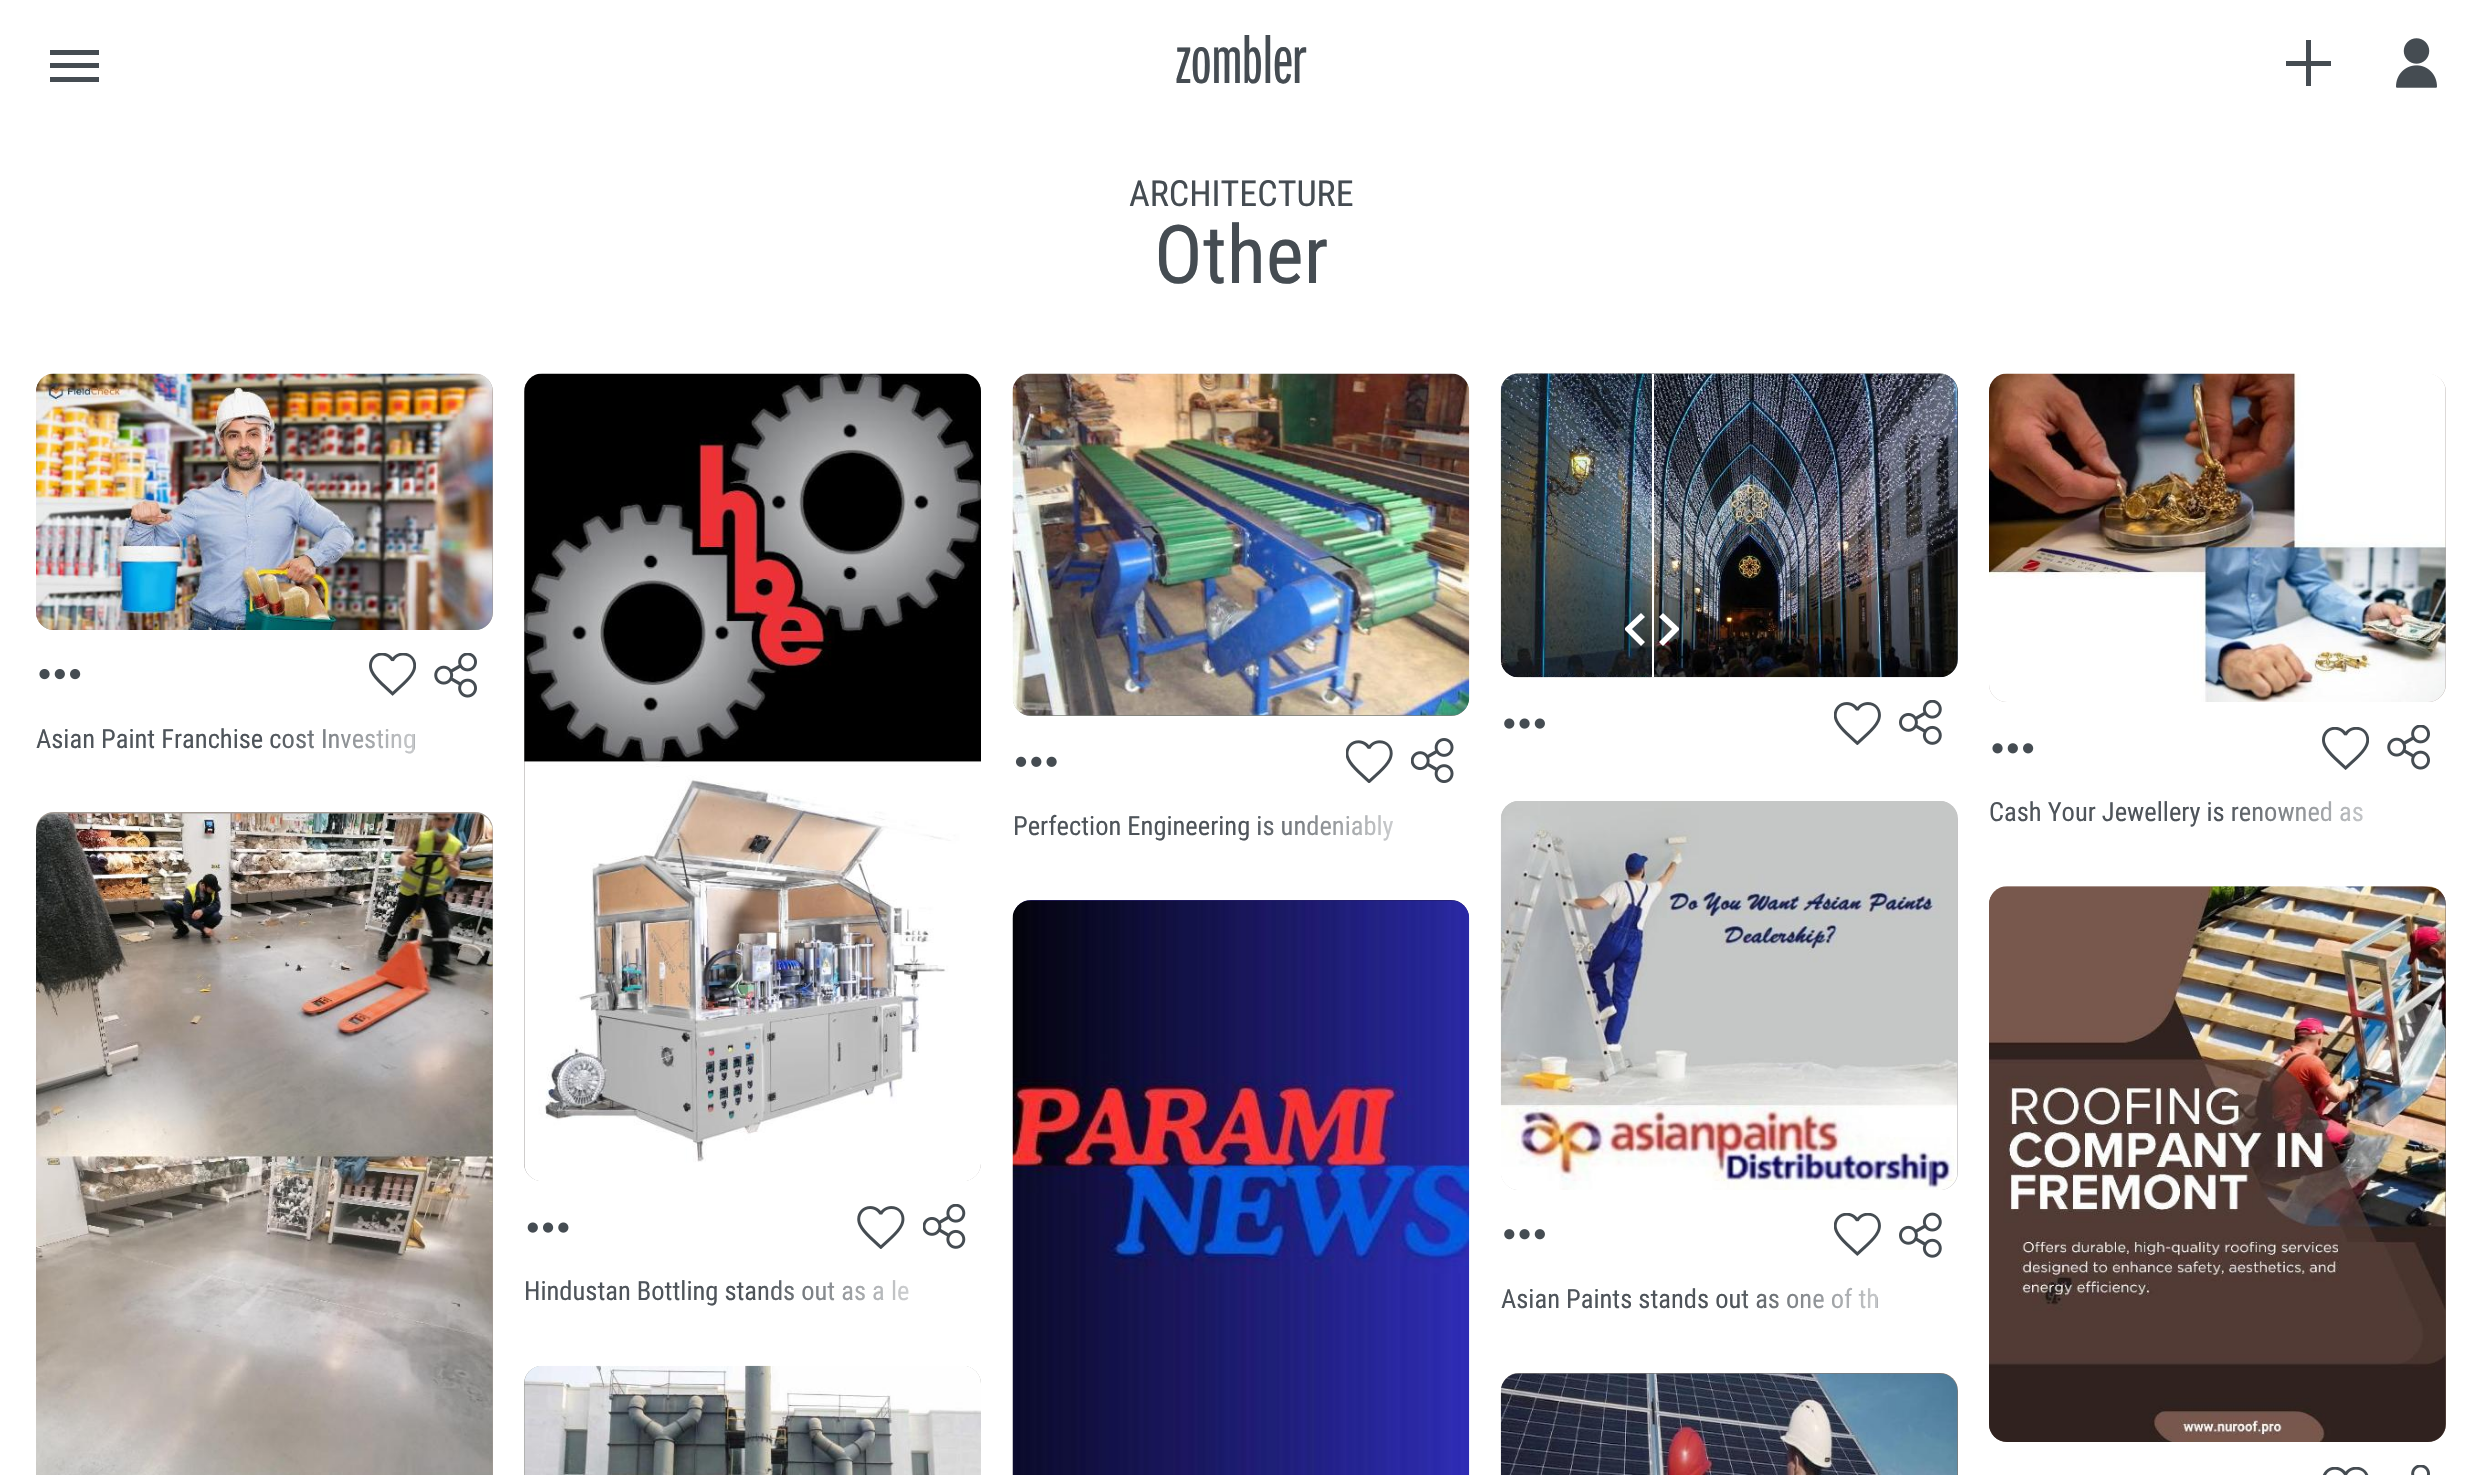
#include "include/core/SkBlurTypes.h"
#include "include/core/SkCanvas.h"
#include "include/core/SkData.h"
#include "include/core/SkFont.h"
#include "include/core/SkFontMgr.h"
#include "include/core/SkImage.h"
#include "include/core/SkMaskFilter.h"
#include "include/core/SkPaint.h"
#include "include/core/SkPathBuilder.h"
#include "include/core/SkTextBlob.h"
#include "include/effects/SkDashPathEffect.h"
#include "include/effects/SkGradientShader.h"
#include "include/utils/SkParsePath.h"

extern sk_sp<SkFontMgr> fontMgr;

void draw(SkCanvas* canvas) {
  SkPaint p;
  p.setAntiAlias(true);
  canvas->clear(SK_ColorWHITE);
  p.setColor(SkColorSetRGB(69, 76, 82));
  canvas->drawRect(SkRect::MakeLTRB(50, 50, 99, 55), p);
  canvas->drawRect(SkRect::MakeLTRB(50, 63, 99, 68), p);
  canvas->drawRect(SkRect::MakeLTRB(50, 77, 99, 82), p);
  canvas->drawRect(SkRect::MakeLTRB(2286, 61, 2331, 66), p);
  canvas->drawRect(SkRect::MakeLTRB(2306, 40, 2311, 86), p);
  canvas->drawImageRect(SkImages::DeferredFromEncodedData(SkData::MakeFromFileName("images/1.png")), SkRect::MakeLTRB(2396, 38, 2437, 88), SkSamplingOptions());
  p.setColor(SkColorSetRGB(157, 147, 138));
  canvas->drawRoundRect(SkRect::MakeLTRB(36, 374, 493, 630), 18, 18, p);
  canvas->drawImageRect(SkImages::DeferredFromEncodedData(SkData::MakeFromFileName("images/2.png")), SkRect::MakeLTRB(36, 373, 493, 630), SkSamplingOptions());
  canvas->drawImageRect(SkImages::DeferredFromEncodedData(SkData::MakeFromFileName("images/3.png")), SkRect::MakeLTRB(39, 669, 81, 680), SkSamplingOptions());
  canvas->drawImageRect(SkImages::DeferredFromEncodedData(SkData::MakeFromFileName("images/4.png")), SkRect::MakeLTRB(369, 653, 416, 696), SkSamplingOptions());
  canvas->drawImageRect(SkImages::DeferredFromEncodedData(SkData::MakeFromFileName("images/5.png")), SkRect::MakeLTRB(434, 653, 477, 698), SkSamplingOptions());
  p.setColor(SkColorSetRGB(64, 72, 82));
  canvas->drawRoundRect(SkRect::MakeLTRB(1501, 374, 1958, 677), 18, 18, p);
  canvas->drawImageRect(SkImages::DeferredFromEncodedData(SkData::MakeFromFileName("images/6.png")), SkRect::MakeLTRB(1500, 373, 1958, 678), SkSamplingOptions());
  canvas->drawImageRect(SkImages::DeferredFromEncodedData(SkData::MakeFromFileName("images/7.png")), SkRect::MakeLTRB(1501, 373, 1652, 678), SkSamplingOptions());
  p.setColor(SK_ColorWHITE);
  canvas->drawRect(SkRect::MakeLTRB(1652, 374, 1654, 677), p);
  canvas->save();
  canvas->clipRect(SkRect::MakeLTRB(1625, 596, 1679, 664));
  canvas->drawPath(SkPathBuilder().moveTo(1645, 642).lineTo(1632, 629).lineTo(1645, 617).lineTo(1641, 613).lineTo(1624, 629).lineTo(1641, 646).close().moveTo(1659, 642).lineTo(1672, 629).lineTo(1659, 617).lineTo(1663, 613).lineTo(1680, 629).lineTo(1663, 646).close().detach(), p);
  canvas->restore();
  canvas->drawImageRect(SkImages::DeferredFromEncodedData(SkData::MakeFromFileName("images/8.png")), SkRect::MakeLTRB(1504, 718, 1545, 729), SkSamplingOptions());
  canvas->drawImageRect(SkImages::DeferredFromEncodedData(SkData::MakeFromFileName("images/9.png")), SkRect::MakeLTRB(1834, 702, 1881, 745), SkSamplingOptions());
  canvas->drawImageRect(SkImages::DeferredFromEncodedData(SkData::MakeFromFileName("images/10.png")), SkRect::MakeLTRB(1899, 700, 1942, 745), SkSamplingOptions());
  p.setColor(SkColorSetRGB(164, 155, 148));
  canvas->drawRoundRect(SkRect::MakeLTRB(36, 812, 493, 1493), 18, 18, p);
  canvas->drawImageRect(SkImages::DeferredFromEncodedData(SkData::MakeFromFileName("images/11.png")), SkRect::MakeLTRB(36, 813, 493, 1475), SkSamplingOptions());
  p.setColor(SkColorSetRGB(123, 128, 123));
  canvas->drawRoundRect(SkRect::MakeLTRB(1013, 374, 1469, 716), 18, 18, p);
  canvas->drawImageRect(SkImages::DeferredFromEncodedData(SkData::MakeFromFileName("images/12.png")), SkRect::MakeLTRB(1012, 373, 1470, 716), SkSamplingOptions());
  canvas->drawImageRect(SkImages::DeferredFromEncodedData(SkData::MakeFromFileName("images/13.png")), SkRect::MakeLTRB(1015, 756, 1057, 767), SkSamplingOptions());
  canvas->drawImageRect(SkImages::DeferredFromEncodedData(SkData::MakeFromFileName("images/14.png")), SkRect::MakeLTRB(1346, 740, 1393, 783), SkSamplingOptions());
  canvas->drawImageRect(SkImages::DeferredFromEncodedData(SkData::MakeFromFileName("images/15.png")), SkRect::MakeLTRB(1411, 738, 1454, 783), SkSamplingOptions());
  p.setColor(SkColorSetRGB(177, 167, 164));
  canvas->drawRoundRect(SkRect::MakeLTRB(1989, 374, 2446, 702), 18, 18, p);
  canvas->drawImageRect(SkImages::DeferredFromEncodedData(SkData::MakeFromFileName("images/16.png")), SkRect::MakeLTRB(1989, 373, 2446, 702), SkSamplingOptions());
  canvas->drawImageRect(SkImages::DeferredFromEncodedData(SkData::MakeFromFileName("images/17.png")), SkRect::MakeLTRB(1992, 743, 2034, 754), SkSamplingOptions());
  canvas->drawImageRect(SkImages::DeferredFromEncodedData(SkData::MakeFromFileName("images/18.png")), SkRect::MakeLTRB(2322, 727, 2369, 770), SkSamplingOptions());
  canvas->drawImageRect(SkImages::DeferredFromEncodedData(SkData::MakeFromFileName("images/5.png")), SkRect::MakeLTRB(2387, 725, 2430, 770), SkSamplingOptions());
  p.setColor(SkColorSetRGB(145, 139, 138));
  canvas->drawRoundRect(SkRect::MakeLTRB(524, 374, 981, 1181), 18, 18, p);
  canvas->drawImageRect(SkImages::DeferredFromEncodedData(SkData::MakeFromFileName("images/19.png")), SkRect::MakeLTRB(524, 373, 981, 1181), SkSamplingOptions());
  canvas->drawImageRect(SkImages::DeferredFromEncodedData(SkData::MakeFromFileName("images/20.png")), SkRect::MakeLTRB(527, 1222, 569, 1233), SkSamplingOptions());
  canvas->drawImageRect(SkImages::DeferredFromEncodedData(SkData::MakeFromFileName("images/21.png")), SkRect::MakeLTRB(857, 1206, 905, 1249), SkSamplingOptions());
  canvas->drawImageRect(SkImages::DeferredFromEncodedData(SkData::MakeFromFileName("images/22.png")), SkRect::MakeLTRB(923, 1204, 966, 1249), SkSamplingOptions());
  p.setColor(SkColorSetRGB(37, 30, 106));
  canvas->drawRoundRect(SkRect::MakeLTRB(1013, 900, 1469, 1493), 18, 18, p);
  canvas->drawImageRect(SkImages::DeferredFromEncodedData(SkData::MakeFromFileName("images/23.png")), SkRect::MakeLTRB(1012, 900, 1470, 1475), SkSamplingOptions());
  p.setColor(SkColorSetRGB(196, 194, 196));
  canvas->drawRoundRect(SkRect::MakeLTRB(1501, 801, 1958, 1190), 18, 18, p);
  canvas->drawImageRect(SkImages::DeferredFromEncodedData(SkData::MakeFromFileName("images/24.png")), SkRect::MakeLTRB(1500, 801, 1958, 1190), SkSamplingOptions());
  canvas->drawImageRect(SkImages::DeferredFromEncodedData(SkData::MakeFromFileName("images/25.png")), SkRect::MakeLTRB(1504, 1229, 1545, 1240), SkSamplingOptions());
  canvas->drawImageRect(SkImages::DeferredFromEncodedData(SkData::MakeFromFileName("images/26.png")), SkRect::MakeLTRB(1834, 1213, 1881, 1256), SkSamplingOptions());
  canvas->drawImageRect(SkImages::DeferredFromEncodedData(SkData::MakeFromFileName("images/27.png")), SkRect::MakeLTRB(1899, 1212, 1942, 1258), SkSamplingOptions());
  p.setColor(SkColorSetRGB(107, 88, 80));
  canvas->drawRoundRect(SkRect::MakeLTRB(1989, 887, 2446, 1442), 18, 18, p);
  canvas->drawImageRect(SkImages::DeferredFromEncodedData(SkData::MakeFromFileName("images/28.png")), SkRect::MakeLTRB(1989, 886, 2446, 1442), SkSamplingOptions());
  canvas->drawImageRect(SkImages::DeferredFromEncodedData(SkData::MakeFromFileName("images/29.png")), SkRect::MakeLTRB(2322, 1467, 2369, 1475), SkSamplingOptions());
  canvas->drawImageRect(SkImages::DeferredFromEncodedData(SkData::MakeFromFileName("images/30.png")), SkRect::MakeLTRB(2411, 1465, 2430, 1475), SkSamplingOptions());
  p.setColor(SkColorSetRGB(140, 141, 132));
  canvas->drawRoundRect(SkRect::MakeLTRB(524, 1366, 981, 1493), 18, 18, p);
  canvas->drawImageRect(SkImages::DeferredFromEncodedData(SkData::MakeFromFileName("images/31.png")), SkRect::MakeLTRB(524, 1365, 981, 1475), SkSamplingOptions());
  p.setColor(SkColorSetRGB(124, 120, 117));
  canvas->drawRoundRect(SkRect::MakeLTRB(1501, 1373, 1958, 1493), 18, 18, p);
  canvas->drawImageRect(SkImages::DeferredFromEncodedData(SkData::MakeFromFileName("images/32.png")), SkRect::MakeLTRB(1500, 1373, 1958, 1475), SkSamplingOptions());
  SkFont font1(fontMgr->matchFamilyStyle("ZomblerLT", SkFontStyle::Normal()), 72);
  font1.setSubpixel(true);
  p.setColor(SkColorSetRGB(69, 76, 82));
  canvas->drawString("zombler", 1176, 83, font1, p);
  SkFont font2(fontMgr->matchFamilyStyle("Roboto Condensed", SkFontStyle::Normal()), 36);
  font2.setSubpixel(true);
  canvas->drawString("ARCHITECTURE", 1129, 206, font2, p);
  SkFont font3(fontMgr->matchFamilyStyle("Roboto Condensed", SkFontStyle::Normal()), 81);
  font3.setSubpixel(true);
  canvas->drawString("Other", 1154, 283, font3, p);
  SkFont font4(fontMgr->matchFamilyStyle("Roboto Condensed", SkFontStyle::Normal()), 26.5f);
  font4.setSubpixel(true);
  p.setColor(SkColorSetRGB(78, 84, 90));
  canvas->drawString("Asian Paint Franchise cost Investing", 36, 748, font4, p);
  {
    const SkColor colors[] = {SkColorSetARGB(0, 255, 255, 255), SK_ColorWHITE, SK_ColorWHITE};
    const float stops[] = {0, 0.95f, 1};
    const SkPoint ends[] = {{268, 749}, {493, 749}};
    p.setShader(SkGradientShader::MakeLinear(ends, colors, stops, 3, SkTileMode::kClamp));
    p.setAlpha(255);
  }
  canvas->drawRect(SkRect::MakeLTRB(273, 728, 414, 754), p);
  p.setShader(nullptr);
  p.setColor(SkColorSetRGB(78, 84, 90));
  canvas->drawString("Perfection Engineering is undeniably", 1013, 835, font4, p);
  {
    const SkColor colors[] = {SkColorSetARGB(0, 255, 255, 255), SK_ColorWHITE, SK_ColorWHITE};
    const float stops[] = {0, 0.95f, 1};
    const SkPoint ends[] = {{1244, 837}, {1469, 837}};
    p.setShader(SkGradientShader::MakeLinear(ends, colors, stops, 3, SkTileMode::kClamp));
    p.setAlpha(255);
  }
  canvas->drawRect(SkRect::MakeLTRB(1257, 815, 1393, 841), p);
  p.setShader(nullptr);
  p.setColor(SkColorSetRGB(78, 84, 90));
  canvas->drawString("Cash Your Jewellery is renowned as", 1989, 821, font4, p);
  {
    const SkColor colors[] = {SkColorSetARGB(0, 255, 255, 255), SK_ColorWHITE, SK_ColorWHITE};
    const float stops[] = {0, 0.95f, 1};
    const SkPoint ends[] = {{2221, 824}, {2446, 824}};
    p.setShader(SkGradientShader::MakeLinear(ends, colors, stops, 3, SkTileMode::kClamp));
    p.setAlpha(255);
  }
  canvas->drawRect(SkRect::MakeLTRB(2232, 801, 2363, 822), p);
  p.setShader(nullptr);
  p.setColor(SkColorSetRGB(78, 84, 90));
  canvas->drawString("Hindustan Bottling stands out as a le", 524, 1300, font4, p);
  {
    const SkColor colors[] = {SkColorSetARGB(0, 255, 255, 255), SK_ColorWHITE, SK_ColorWHITE};
    const float stops[] = {0, 0.95f, 1};
    const SkPoint ends[] = {{756, 1303}, {981, 1303}};
    p.setShader(SkGradientShader::MakeLinear(ends, colors, stops, 3, SkTileMode::kClamp));
    p.setAlpha(255);
  }
  canvas->drawRect(SkRect::MakeLTRB(761, 1280, 909, 1301), p);
  p.setShader(nullptr);
  p.setColor(SkColorSetRGB(78, 84, 90));
  canvas->drawString("Asian Paints stands out as one of th", 1501, 1308, font4, p);
  {
    const SkColor colors[] = {SkColorSetARGB(0, 255, 255, 255), SK_ColorWHITE, SK_ColorWHITE};
    const float stops[] = {0, 0.95f, 1};
    const SkPoint ends[] = {{1733, 1309}, {1958, 1309}};
    p.setShader(SkGradientShader::MakeLinear(ends, colors, stops, 3, SkTileMode::kClamp));
    p.setAlpha(255);
  }
  canvas->drawRect(SkRect::MakeLTRB(1738, 1287, 1877, 1309), p);
}
